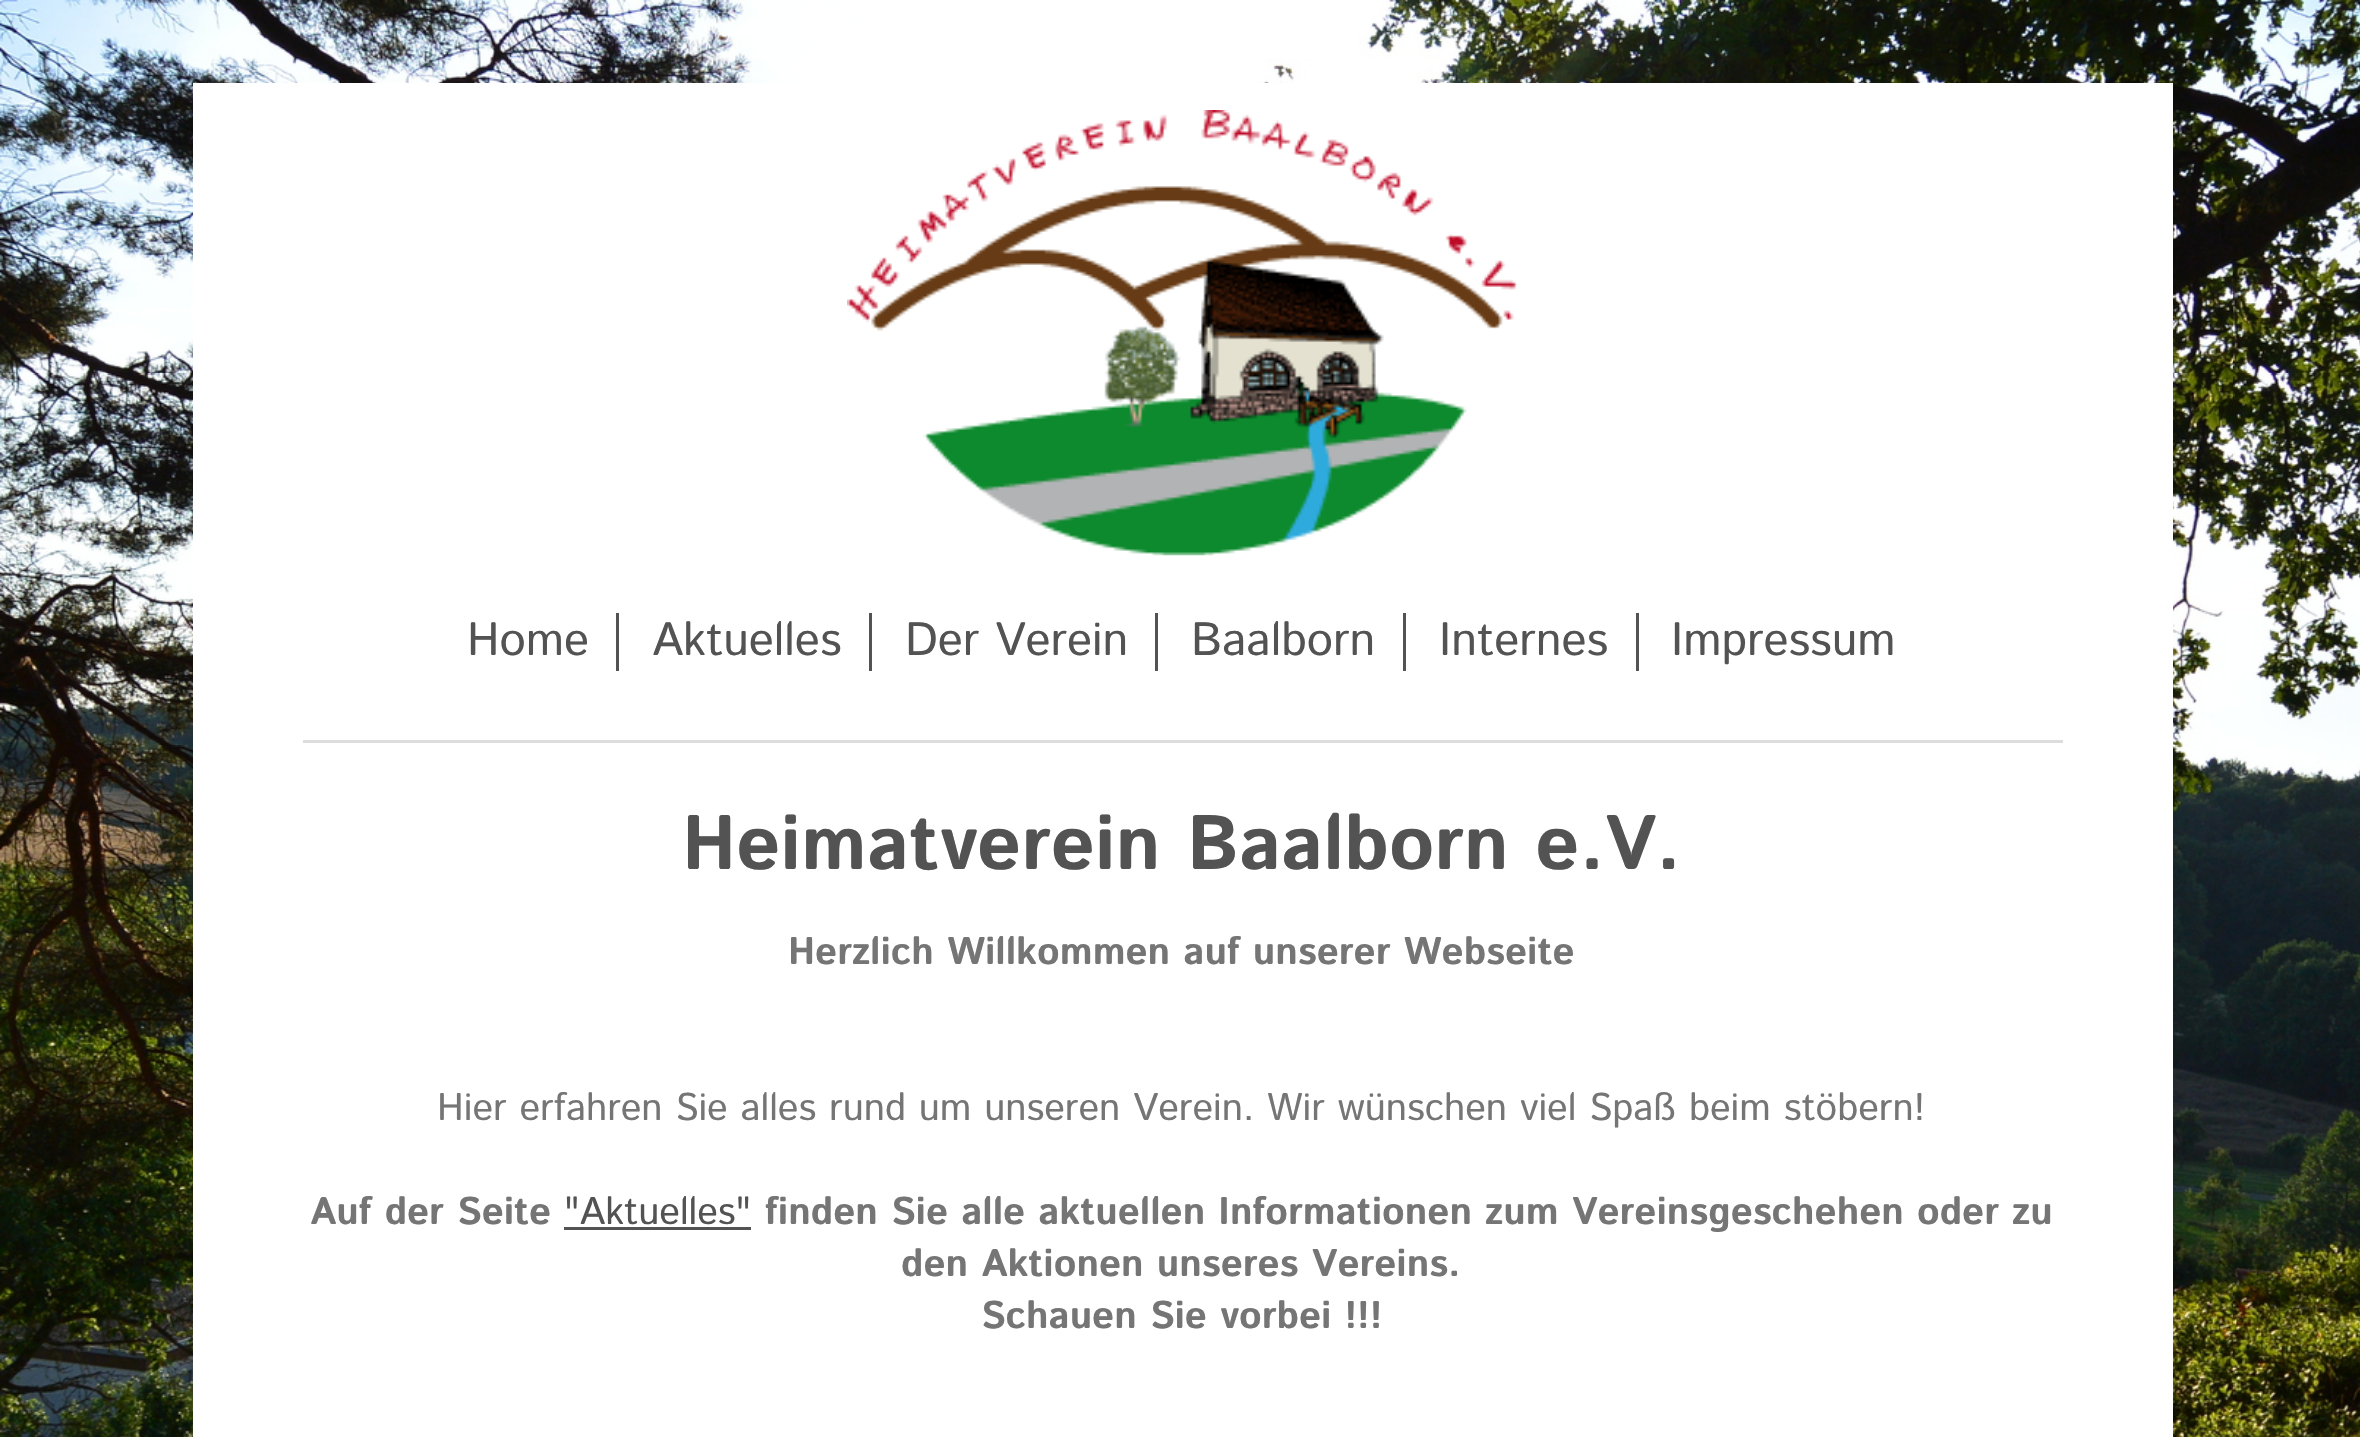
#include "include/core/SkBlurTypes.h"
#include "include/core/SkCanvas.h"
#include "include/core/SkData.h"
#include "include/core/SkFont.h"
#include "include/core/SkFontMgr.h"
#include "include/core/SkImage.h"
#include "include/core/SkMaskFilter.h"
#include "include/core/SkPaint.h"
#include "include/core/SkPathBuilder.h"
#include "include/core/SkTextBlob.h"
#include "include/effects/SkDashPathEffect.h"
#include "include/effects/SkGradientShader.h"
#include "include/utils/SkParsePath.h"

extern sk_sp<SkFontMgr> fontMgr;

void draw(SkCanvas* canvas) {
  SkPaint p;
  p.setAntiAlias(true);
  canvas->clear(SK_ColorWHITE);
  canvas->drawImageRect(SkImages::DeferredFromEncodedData(SkData::MakeFromFileName("images/1.png")), SkRect::MakeLTRB(0, 0, 2360, 1437), SkSamplingOptions());
  p.setColor(SK_ColorWHITE);
  canvas->drawRect(SkRect::MakeLTRB(193, 83, 2173, 1437), p);
  canvas->drawImageRect(SkImages::DeferredFromEncodedData(SkData::MakeFromFileName("images/2.png")), SkRect::MakeLTRB(847, 110, 1517, 556), SkSamplingOptions());
  p.setColor(SkColorSetRGB(221, 221, 221));
  canvas->drawRect(SkRect::MakeLTRB(303, 740, 2063, 743), p);
  p.setColor(SkColorSetRGB(83, 83, 83));
  canvas->drawRect(SkRect::MakeLTRB(616, 613, 619, 671), p);
  canvas->drawRect(SkRect::MakeLTRB(869, 613, 872, 671), p);
  canvas->drawRect(SkRect::MakeLTRB(1155, 613, 1158, 671), p);
  canvas->drawRect(SkRect::MakeLTRB(1403, 613, 1406, 671), p);
  canvas->drawRect(SkRect::MakeLTRB(1636, 613, 1639, 671), p);
  canvas->drawRect(SkRect::MakeLTRB(564, 1227, 751, 1230), p);
  SkFont font1(fontMgr->matchFamilyStyle("Istok Web", SkFontStyle::Normal()), 46.75f);
  font1.setSubpixel(true);
  canvas->drawString("Home", 467, 655, font1, p);
  canvas->drawString("Aktuelles", 652, 655, font1, p);
  canvas->drawString("Der Verein", 905, 655, font1, p);
  canvas->drawString("Baalborn", 1191, 655, font1, p);
  canvas->drawString("Internes", 1439, 655, font1, p);
  canvas->drawString("Impressum", 1671, 655, font1, p);
  SkFont font2(fontMgr->matchFamilyStyle("Istok Web", SkFontStyle::Bold()), 77);
  font2.setSubpixel(true);
  canvas->drawString("Heimatverein Baalborn e.V.", 682, 869, font2, p);
  SkFont font3(fontMgr->matchFamilyStyle("Istok Web", SkFontStyle::Bold()), 38.5f);
  font3.setSubpixel(true);
  p.setColor(SkColorSetRGB(117, 117, 117));
  canvas->drawString("Herzlich Willkommen auf unserer Webseite", 788, 964, font3, p);
  SkFont font4(fontMgr->matchFamilyStyle("Istok Web", SkFontStyle::Normal()), 38.5f);
  font4.setSubpixel(true);
  canvas->drawString("Hier erfahren Sie alles rund um unseren Verein. Wir wünschen viel Spaß beim stöbern!", 437, 1120, font4, p);
  canvas->drawString("Auf der Seite", 310, 1224, font3, p);
  p.setColor(SkColorSetRGB(83, 83, 83));
  canvas->drawString("\"Aktuelles\"", 564, 1224, font4, p);
  p.setColor(SkColorSetRGB(117, 117, 117));
  canvas->drawString("finden Sie alle aktuellen Informationen zum Vereinsgeschehen oder zu", 765, 1224, font3, p);
  canvas->drawString("den Aktionen unseres Vereins.", 901, 1276, font3, p);
  canvas->drawString("Schauen Sie vorbei !!!", 981, 1328, font3, p);
}
